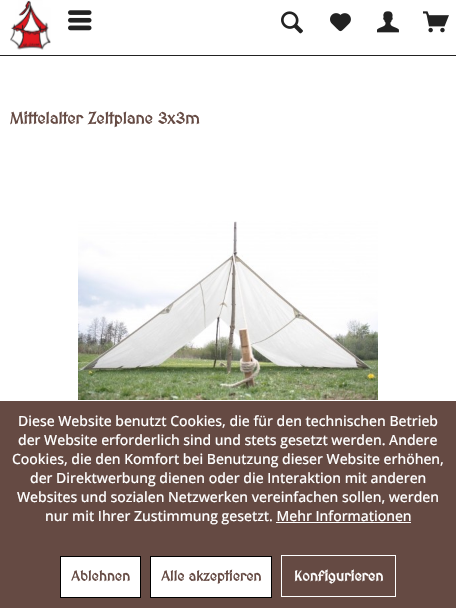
#include "include/core/SkBlurTypes.h"
#include "include/core/SkCanvas.h"
#include "include/core/SkData.h"
#include "include/core/SkFont.h"
#include "include/core/SkFontMgr.h"
#include "include/core/SkImage.h"
#include "include/core/SkMaskFilter.h"
#include "include/core/SkPaint.h"
#include "include/core/SkPathBuilder.h"
#include "include/core/SkTextBlob.h"
#include "include/effects/SkDashPathEffect.h"
#include "include/effects/SkGradientShader.h"
#include "include/utils/SkParsePath.h"

extern sk_sp<SkFontMgr> fontMgr;

void draw(SkCanvas* canvas) {
  SkPaint p;
  p.setAntiAlias(true);
  canvas->clear(SK_ColorWHITE);
  p.setColor(SkColorSetRGB(34, 34, 34));
  canvas->drawRect(SkRect::MakeLTRB(0, 55, 456, 56), p);
  canvas->drawImageRect(SkImages::DeferredFromEncodedData(SkData::MakeFromFileName("images/1.png")), SkRect::MakeLTRB(10, 0, 51, 50), SkSamplingOptions());
  canvas->drawImageRect(SkImages::DeferredFromEncodedData(SkData::MakeFromFileName("images/2.png")), SkRect::MakeLTRB(68, 10, 92, 31), SkSamplingOptions());
  canvas->drawImageRect(SkImages::DeferredFromEncodedData(SkData::MakeFromFileName("images/3.png")), SkRect::MakeLTRB(281, 11, 303, 34), SkSamplingOptions());
  canvas->drawImageRect(SkImages::DeferredFromEncodedData(SkData::MakeFromFileName("images/4.png")), SkRect::MakeLTRB(330, 13, 351, 32), SkSamplingOptions());
  canvas->drawImageRect(SkImages::DeferredFromEncodedData(SkData::MakeFromFileName("images/5.png")), SkRect::MakeLTRB(377, 11, 399, 33), SkSamplingOptions());
  canvas->drawImageRect(SkImages::DeferredFromEncodedData(SkData::MakeFromFileName("images/6.png")), SkRect::MakeLTRB(423, 11, 449, 33), SkSamplingOptions());
  canvas->drawImageRect(SkImages::DeferredFromEncodedData(SkData::MakeFromFileName("images/7.png")), SkRect::MakeLTRB(78, 221, 378, 400), SkSamplingOptions());
  p.setColor(SkColorSetRGB(101, 74, 67));
  canvas->drawRect(SkRect::MakeLTRB(0, 401, 456, 608), p);
  p.setColor(SK_ColorWHITE);
  canvas->drawRect(SkRect::MakeLTRB(276, 522, 411, 523), p);
  canvas->drawRect(SkRect::MakeLTRB(60.5f, 556.5f, 140.5f, 597.5f), p);
  p.setStyle(SkPaint::kStroke_Style);
  p.setStrokeWidth(1);
  p.setColor(SK_ColorBLACK);
  canvas->drawRect(SkRect::MakeLTRB(60.5f, 556.5f, 140.5f, 597.5f), p);
  p.setStyle(SkPaint::kFill_Style);
  p.setColor(SK_ColorWHITE);
  canvas->drawRect(SkRect::MakeLTRB(150.5f, 556.5f, 271.5f, 597.5f), p);
  p.setStyle(SkPaint::kStroke_Style);
  p.setColor(SK_ColorBLACK);
  canvas->drawRect(SkRect::MakeLTRB(150.5f, 556.5f, 271.5f, 597.5f), p);
  p.setColor(SK_ColorWHITE);
  canvas->drawRect(SkRect::MakeLTRB(281.5f, 555.5f, 395.5f, 596.5f), p);
  SkFont font1(fontMgr->matchFamilyStyle("MedievalSharp", SkFontStyle::Bold()), 16);
  font1.setSubpixel(true);
  p.setStyle(SkPaint::kFill_Style);
  p.setColor(SkColorSetRGB(101, 74, 67));
  canvas->drawString("Mittelalter Zeltplane 3x3m", 10, 124, font1, p);
  SkFont font2(fontMgr->matchFamilyStyle("Open Sans", SkFontStyle(500, SkFontStyle::kNormal_Width, SkFontStyle::kUpright_Slant)), 14);
  font2.setSubpixel(true);
  p.setColor(SK_ColorWHITE);
  canvas->drawString("Diese Website benutzt Cookies, die für den technischen Betrieb", 18, 426, font2, p);
  canvas->drawString("der Website erforderlich sind und stets gesetzt werden. Andere", 18, 445, font2, p);
  canvas->drawString("Cookies, die den Komfort bei Benutzung dieser Website erhöhen,", 12, 464, font2, p);
  canvas->drawString("der Direktwerbung dienen oder die Interaktion mit anderen", 30, 483, font2, p);
  canvas->drawString("Websites und sozialen Netzwerken vereinfachen sollen, werden", 17, 502, font2, p);
  canvas->drawString("nur mit Ihrer Zustimmung gesetzt. Mehr Informationen", 45, 521, font2, p);
  SkFont font3(fontMgr->matchFamilyStyle("MedievalSharp", SkFontStyle::Bold()), 14);
  font3.setSubpixel(true);
  p.setColor(SkColorSetRGB(101, 74, 67));
  canvas->drawString("Ablehnen", 71, 581, font3, p);
  canvas->drawString("Alle akzeptieren", 161, 581, font3, p);
  p.setColor(SK_ColorWHITE);
  canvas->drawString("Konfigurieren", 294, 581, font3, p);
}
